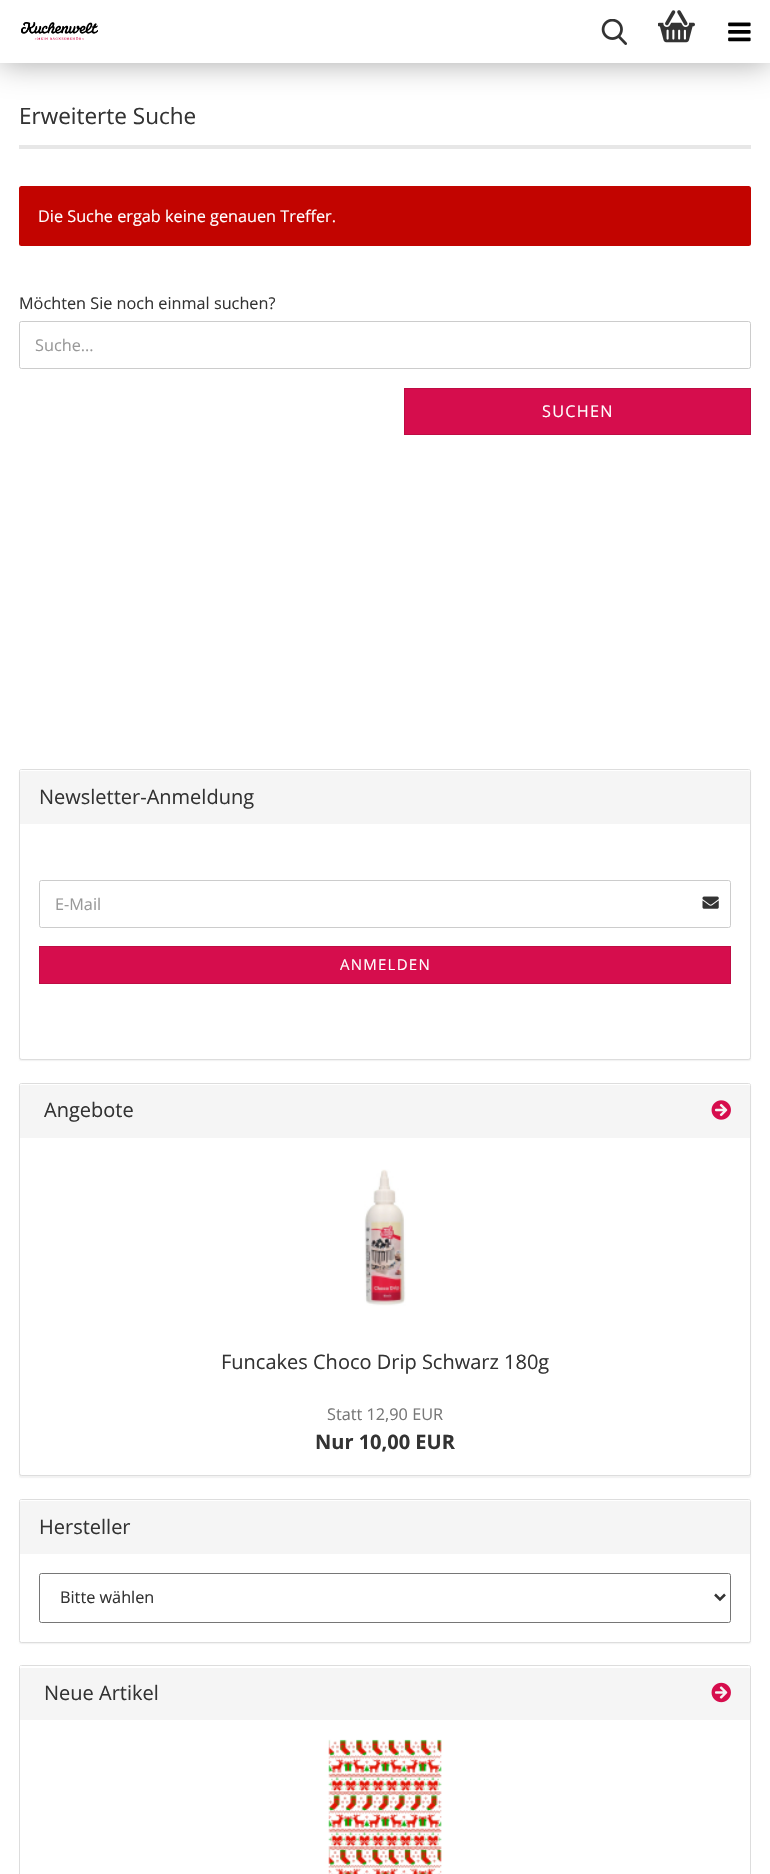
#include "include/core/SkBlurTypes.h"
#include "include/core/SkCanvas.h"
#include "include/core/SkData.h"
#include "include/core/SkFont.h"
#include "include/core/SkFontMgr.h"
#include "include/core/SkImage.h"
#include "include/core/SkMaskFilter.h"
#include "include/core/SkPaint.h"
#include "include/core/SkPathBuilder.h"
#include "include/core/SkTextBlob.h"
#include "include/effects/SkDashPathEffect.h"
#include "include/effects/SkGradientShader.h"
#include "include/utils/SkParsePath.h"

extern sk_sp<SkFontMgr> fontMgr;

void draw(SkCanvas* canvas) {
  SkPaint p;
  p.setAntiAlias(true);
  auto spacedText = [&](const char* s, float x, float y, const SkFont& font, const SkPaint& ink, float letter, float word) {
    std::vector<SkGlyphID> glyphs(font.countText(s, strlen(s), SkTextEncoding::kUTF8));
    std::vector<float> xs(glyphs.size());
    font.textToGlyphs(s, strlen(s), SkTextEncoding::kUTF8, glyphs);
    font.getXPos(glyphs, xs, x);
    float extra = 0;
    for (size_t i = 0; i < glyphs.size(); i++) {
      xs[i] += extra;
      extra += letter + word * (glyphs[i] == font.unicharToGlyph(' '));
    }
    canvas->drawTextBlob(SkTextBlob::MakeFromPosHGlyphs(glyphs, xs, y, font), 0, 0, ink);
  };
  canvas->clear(SK_ColorWHITE);
  p.setColor(SkColorSetARGB(89, 0, 0, 0));
  p.setMaskFilter(SkMaskFilter::MakeBlur(kNormal_SkBlurStyle, 15.5f));
  canvas->drawRect(SkRect::MakeLTRB(0, 0, 770, 63), p);
  p.setMaskFilter(nullptr);
  p.setColor(SK_ColorWHITE);
  canvas->drawRect(SkRect::MakeLTRB(0, 0, 770, 63), p);
  canvas->drawImageRect(SkImages::DeferredFromEncodedData(SkData::MakeFromFileName("images/1.png")), SkRect::MakeLTRB(21, 22, 98, 40), SkSamplingOptions());
  canvas->drawImageRect(SkImages::DeferredFromEncodedData(SkData::MakeFromFileName("images/2.png")), SkRect::MakeLTRB(601, 19, 627, 45), SkSamplingOptions());
  canvas->drawImageRect(SkImages::DeferredFromEncodedData(SkData::MakeFromFileName("images/3.png")), SkRect::MakeLTRB(658, 10, 695, 43), SkSamplingOptions());
  canvas->drawImageRect(SkImages::DeferredFromEncodedData(SkData::MakeFromFileName("images/4.png")), SkRect::MakeLTRB(728, 22, 751, 42), SkSamplingOptions());
  p.setColor(SkColorSetRGB(231, 231, 231));
  canvas->drawRect(SkRect::MakeLTRB(19, 145, 751, 149), p);
  p.setColor(SkColorSetRGB(194, 4, 0));
  canvas->drawRoundRect(SkRect::MakeLTRB(19, 186, 751, 246), 2.5f, 2.5f, p);
  p.setStyle(SkPaint::kStroke_Style);
  p.setStrokeWidth(1);
  p.setColor(SkColorSetRGB(204, 204, 204));
  canvas->drawRoundRect(SkRect::MakeLTRB(19.5f, 321.5f, 750.5f, 368.5f), 2, 2, p);
  p.setStyle(SkPaint::kFill_Style);
  p.setColor(SkColorSetRGB(214, 13, 77));
  canvas->drawRect(SkRect::MakeLTRB(404.5f, 388.5f, 750.5f, 434.5f), p);
  p.setStyle(SkPaint::kStroke_Style);
  p.setColor(SkColorSetRGB(190, 12, 68));
  canvas->drawRect(SkRect::MakeLTRB(404.5f, 388.5f, 750.5f, 434.5f), p);
  p.setStyle(SkPaint::kFill_Style);
  p.setColor(SkColorSetARGB(13, 0, 0, 0));
  p.setMaskFilter(SkMaskFilter::MakeBlur(kNormal_SkBlurStyle, 0.5f));
  canvas->drawRoundRect(SkRect::MakeLTRB(19, 770, 751, 1061), 2.5f, 2.5f, p);
  p.setMaskFilter(nullptr);
  p.setStyle(SkPaint::kStroke_Style);
  p.setColor(SkColorSetRGB(221, 221, 221));
  canvas->drawRoundRect(SkRect::MakeLTRB(19.5f, 769.5f, 750.5f, 1059.5f), 2, 2, p);
  p.setStyle(SkPaint::kFill_Style);
  p.setColor(SkColorSetRGB(245, 245, 245));
  canvas->drawPath(SkPathBuilder().moveTo(21, 770).lineTo(749, 770).cubicTo(749.5f, 770, 750, 770.5f, 750, 771).lineTo(750, 824).lineTo(20, 824).lineTo(20, 771).cubicTo(20, 770.5f, 20.5f, 770, 21, 770).close().detach(), p);
  p.setColor(SK_ColorWHITE);
  canvas->drawPath(SkPathBuilder().moveTo(21, 771).lineTo(749, 771).lineTo(750, 772).cubicTo(750, 771, 750, 770, 749, 770).lineTo(21, 770).cubicTo(20, 770, 20, 771, 20, 772).close().detach(), p);
  canvas->drawPath(SkPathBuilder().moveTo(20, 824).lineTo(750, 824).lineTo(750, 1056.5f).cubicTo(750, 1058, 749, 1059, 747.5f, 1059).lineTo(22.5f, 1059).cubicTo(21, 1059, 20, 1058, 20, 1056.5f).close().detach(), p);
  p.setStyle(SkPaint::kStroke_Style);
  p.setColor(SkColorSetRGB(204, 204, 204));
  canvas->drawRoundRect(SkRect::MakeLTRB(39.5f, 880.5f, 730.5f, 927.5f), 2, 2, p);
  canvas->drawImageRect(SkImages::DeferredFromEncodedData(SkData::MakeFromFileName("images/5.png")), SkRect::MakeLTRB(702, 896, 719, 909), SkSamplingOptions());
  p.setStyle(SkPaint::kFill_Style);
  p.setColor(SkColorSetRGB(214, 13, 77));
  canvas->drawRect(SkRect::MakeLTRB(39.5f, 946.5f, 730.5f, 983.5f), p);
  p.setStyle(SkPaint::kStroke_Style);
  p.setColor(SkColorSetRGB(190, 12, 68));
  canvas->drawRect(SkRect::MakeLTRB(39.5f, 946.5f, 730.5f, 983.5f), p);
  p.setStyle(SkPaint::kFill_Style);
  p.setColor(SkColorSetARGB(13, 0, 0, 0));
  p.setMaskFilter(SkMaskFilter::MakeBlur(kNormal_SkBlurStyle, 0.5f));
  canvas->drawRoundRect(SkRect::MakeLTRB(19, 1084, 751, 1478), 2.5f, 2.5f, p);
  p.setMaskFilter(nullptr);
  p.setStyle(SkPaint::kStroke_Style);
  p.setColor(SkColorSetRGB(221, 221, 221));
  canvas->drawRoundRect(SkRect::MakeLTRB(19.5f, 1083.5f, 750.5f, 1475.5f), 2, 2, p);
  p.setStyle(SkPaint::kFill_Style);
  p.setColor(SkColorSetRGB(245, 245, 245));
  canvas->drawPath(SkPathBuilder().moveTo(21, 1084).lineTo(749, 1084).cubicTo(749.5f, 1084, 750, 1084.5f, 750, 1085).lineTo(750, 1138).lineTo(20, 1138).lineTo(20, 1085).cubicTo(20, 1084.5f, 20.5f, 1084, 21, 1084).close().detach(), p);
  p.setColor(SK_ColorWHITE);
  canvas->drawPath(SkPathBuilder().moveTo(21, 1085).lineTo(749, 1085).lineTo(750, 1086).cubicTo(750, 1085, 750, 1084, 749, 1084).lineTo(21, 1084).cubicTo(20, 1084, 20, 1085, 20, 1086).close().detach(), p);
  canvas->drawImageRect(SkImages::DeferredFromEncodedData(SkData::MakeFromFileName("images/6.png")), SkRect::MakeLTRB(711, 1100, 731, 1120), SkSamplingOptions());
  canvas->drawPath(SkPathBuilder().moveTo(20, 1138).lineTo(750, 1138).lineTo(750, 1472.5f).cubicTo(750, 1474, 749, 1475, 747.5f, 1475).lineTo(22.5f, 1475).cubicTo(21, 1475, 20, 1474, 20, 1472.5f).close().detach(), p);
  canvas->drawImageRect(SkImages::DeferredFromEncodedData(SkData::MakeFromFileName("images/7.png")), SkRect::MakeLTRB(364, 1169, 406, 1306), SkSamplingOptions());
  p.setColor(SkColorSetARGB(13, 0, 0, 0));
  p.setMaskFilter(SkMaskFilter::MakeBlur(kNormal_SkBlurStyle, 0.5f));
  canvas->drawRoundRect(SkRect::MakeLTRB(19, 1500, 751, 1644), 2.5f, 2.5f, p);
  p.setMaskFilter(nullptr);
  p.setColor(SK_ColorWHITE);
  canvas->drawRoundRect(SkRect::MakeLTRB(19.5f, 1499.5f, 750.5f, 1642.5f), 2, 2, p);
  p.setStyle(SkPaint::kStroke_Style);
  p.setColor(SkColorSetRGB(221, 221, 221));
  canvas->drawRoundRect(SkRect::MakeLTRB(19.5f, 1499.5f, 750.5f, 1642.5f), 2, 2, p);
  p.setStyle(SkPaint::kFill_Style);
  p.setColor(SkColorSetRGB(245, 245, 245));
  canvas->drawPath(SkPathBuilder().moveTo(21, 1500).lineTo(749, 1500).cubicTo(749.5f, 1500, 750, 1500.5f, 750, 1501).lineTo(750, 1554).lineTo(20, 1554).lineTo(20, 1501).cubicTo(20, 1500.5f, 20.5f, 1500, 21, 1500).close().detach(), p);
  p.setColor(SK_ColorWHITE);
  canvas->drawPath(SkPathBuilder().moveTo(21, 1501).lineTo(749, 1501).lineTo(750, 1502).cubicTo(750, 1501, 750, 1500, 749, 1500).lineTo(21, 1500).cubicTo(20, 1500, 20, 1501, 20, 1502).close().detach(), p);
  p.setStyle(SkPaint::kStroke_Style);
  p.setColor(SkColorSetRGB(118, 118, 118));
  canvas->drawRoundRect(SkRect::MakeLTRB(39.5f, 1573.5f, 730.5f, 1622.5f), 2, 2, p);
  p.setStrokeWidth(2.5f);
  p.setColor(SkColorSetRGB(51, 51, 51));
  canvas->drawPath(SkPathBuilder().moveTo(715, 1594.5f).lineTo(720, 1599.5f).lineTo(725, 1594.5f).detach(), p);
  p.setStrokeWidth(1);
  p.setColor(SkColorSetRGB(221, 221, 221));
  canvas->drawRoundRect(SkRect::MakeLTRB(19.5f, 1665.5f, 750.5f, 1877.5f), 2, 2, p);
  p.setStyle(SkPaint::kFill_Style);
  p.setColor(SkColorSetRGB(245, 245, 245));
  canvas->drawPath(SkPathBuilder().moveTo(21, 1666).lineTo(749, 1666).cubicTo(749.5f, 1666, 750, 1666.5f, 750, 1667).lineTo(750, 1720).lineTo(20, 1720).lineTo(20, 1667).cubicTo(20, 1666.5f, 20.5f, 1666, 21, 1666).close().detach(), p);
  p.setColor(SK_ColorWHITE);
  canvas->drawPath(SkPathBuilder().moveTo(21, 1668).lineTo(749, 1668).lineTo(750, 1669).cubicTo(750, 1668, 750, 1666, 749, 1666).lineTo(20, 1666).lineTo(20, 1669).close().detach(), p);
  canvas->drawImageRect(SkImages::DeferredFromEncodedData(SkData::MakeFromFileName("images/8.png")), SkRect::MakeLTRB(711, 1682, 731, 1703), SkSamplingOptions());
  canvas->drawImageRect(SkImages::DeferredFromEncodedData(SkData::MakeFromFileName("images/9.png")), SkRect::MakeLTRB(328, 1739, 442, 1874), SkSamplingOptions());
  SkFont font1(fontMgr->matchFamilyStyle("Open Sans", SkFontStyle::Normal()), 22.5f);
  font1.setSubpixel(true);
  p.setColor(SkColorSetRGB(51, 51, 51));
  canvas->drawString("Erweiterte Suche", 19, 124, font1, p);
  SkFont font2(fontMgr->matchFamilyStyle("Open Sans", SkFontStyle::Normal()), 16.25f);
  font2.setSubpixel(true);
  p.setColor(SK_ColorWHITE);
  canvas->drawString("Die Suche ergab keine genauen Treffer.", 38, 222, font2, p);
  p.setColor(SkColorSetRGB(51, 51, 51));
  canvas->drawString("Möchten Sie noch einmal suchen?", 19, 309, font2, p);
  p.setColor(SkColorSetRGB(153, 153, 153));
  canvas->drawString("Suche...", 35, 351, font2, p);
  p.setColor(SK_ColorWHITE);
  spacedText("SUCHEN", 542, 417, font2, p, 1.25f, 0);
  SkFont font3(fontMgr->matchFamilyStyle("Open Sans", SkFontStyle::Normal()), 20);
  font3.setSubpixel(true);
  p.setColor(SkColorSetRGB(51, 51, 51));
  canvas->drawString("Newsletter-Anmeldung", 39, 804, font3, p);
  p.setColor(SkColorSetRGB(153, 153, 153));
  canvas->drawString("E-Mail", 55, 910, font2, p);
  SkFont font4(fontMgr->matchFamilyStyle("Open Sans", SkFontStyle::Normal()), 15);
  font4.setSubpixel(true);
  p.setColor(SK_ColorWHITE);
  spacedText("ANMELDEN", 340, 970, font4, p, 1.25f, 0);
  p.setColor(SkColorSetRGB(51, 51, 51));
  canvas->drawString("Angebote", 44, 1117, font3, p);
  canvas->drawString("Funcakes Choco Drip Schwarz 180g", 221, 1369, font3, p);
  p.setColor(SkColorSetRGB(119, 119, 119));
  canvas->drawString("Statt 12,90 EUR", 327, 1420, font2, p);
  SkFont font5(fontMgr->matchFamilyStyle("Open Sans", SkFontStyle::Bold()), 20);
  font5.setSubpixel(true);
  p.setColor(SkColorSetRGB(51, 51, 51));
  canvas->drawString("Nur 10,00 EUR", 315, 1449, font5, p);
  canvas->drawString("Hersteller", 39, 1534, font3, p);
  canvas->drawString("Bitte wählen", 60, 1603, font2, p);
  canvas->drawString("Neue Artikel", 44, 1700, font3, p);
}
